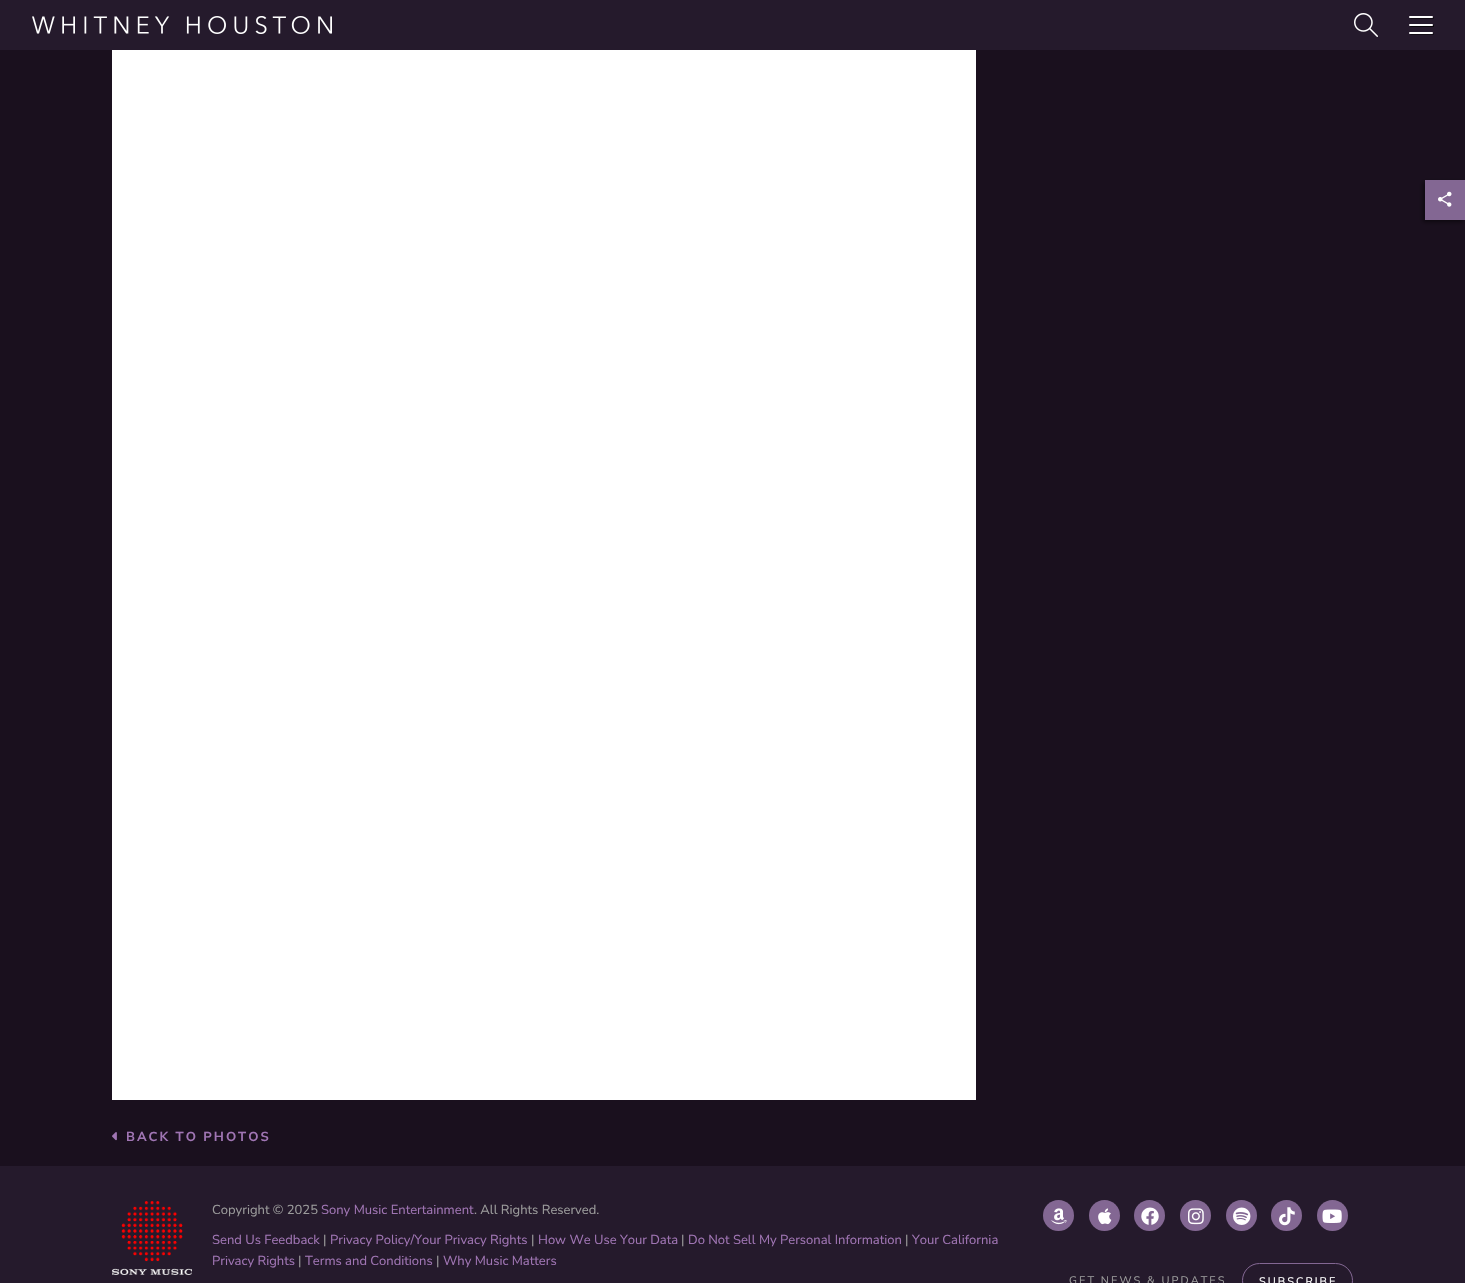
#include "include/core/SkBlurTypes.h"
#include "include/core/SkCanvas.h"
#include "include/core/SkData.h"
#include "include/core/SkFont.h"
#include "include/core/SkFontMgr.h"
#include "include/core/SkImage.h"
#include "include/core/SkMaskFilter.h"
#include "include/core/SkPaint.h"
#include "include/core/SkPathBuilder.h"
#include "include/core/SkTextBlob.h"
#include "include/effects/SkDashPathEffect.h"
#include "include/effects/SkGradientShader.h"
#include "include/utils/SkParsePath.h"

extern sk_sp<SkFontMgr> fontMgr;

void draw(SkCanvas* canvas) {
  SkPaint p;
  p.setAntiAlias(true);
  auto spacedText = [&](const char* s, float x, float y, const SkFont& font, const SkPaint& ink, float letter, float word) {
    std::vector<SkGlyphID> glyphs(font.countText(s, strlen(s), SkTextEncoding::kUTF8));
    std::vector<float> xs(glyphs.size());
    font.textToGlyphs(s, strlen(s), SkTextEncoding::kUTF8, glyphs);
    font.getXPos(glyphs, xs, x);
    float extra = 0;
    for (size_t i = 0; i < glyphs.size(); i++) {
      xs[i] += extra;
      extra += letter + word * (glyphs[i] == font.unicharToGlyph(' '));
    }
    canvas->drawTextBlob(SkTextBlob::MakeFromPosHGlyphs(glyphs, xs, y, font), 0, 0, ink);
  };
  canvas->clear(SkColorSetRGB(26, 16, 30));
  p.setColor(SkColorSetRGB(37, 26, 44));
  canvas->drawRect(SkRect::MakeLTRB(0, 0, 1465, 50), p);
  canvas->drawImageRect(SkImages::DeferredFromEncodedData(SkData::MakeFromFileName("images/1.png")), SkRect::MakeLTRB(32, 16, 332, 34), SkSamplingOptions());
  canvas->drawImageRect(SkImages::DeferredFromEncodedData(SkData::MakeFromFileName("images/2.png")), SkRect::MakeLTRB(1354, 13, 1378, 37), SkSamplingOptions());
  p.setColor(SkColorSetRGB(19, 13, 22));
  canvas->drawPath(SkPathBuilder().moveTo(1410, 18).cubicTo(1410, 19.5f, 1413, 19, 1414.5f, 19).lineTo(1433.5f, 19).cubicTo(1434.5f, 18.5f, 1434, 17, 1433, 17).cubicTo(1433, 17.5f, 1432.5f, 18, 1432, 18).close().detach(), p);
  p.setColor(SK_ColorWHITE);
  canvas->drawRoundRect(SkRect::MakeLTRB(1409, 16, 1433, 18), 1, 1, p);
  p.setColor(SkColorSetRGB(19, 13, 22));
  canvas->drawPath(SkPathBuilder().moveTo(1410, 26).cubicTo(1410, 27.5f, 1413, 27, 1414.5f, 27).lineTo(1433.5f, 27).cubicTo(1434.5f, 26.5f, 1434, 25, 1433, 25).cubicTo(1433, 25.5f, 1432.5f, 26, 1432, 26).close().detach(), p);
  p.setColor(SkColorSetARGB(128, 0, 0, 0));
  canvas->drawPath(SkPathBuilder().moveTo(1410, 26).cubicTo(1410, 27.5f, 1413, 27, 1414.5f, 27).lineTo(1433.5f, 27).cubicTo(1434.5f, 26.5f, 1434, 25, 1433, 25).cubicTo(1433, 25.5f, 1432.5f, 26, 1432, 26).close().detach(), p);
  p.setColor(SK_ColorWHITE);
  canvas->drawRoundRect(SkRect::MakeLTRB(1409, 24, 1433, 26), 1, 1, p);
  p.setColor(SkColorSetRGB(19, 13, 22));
  canvas->drawPath(SkPathBuilder().moveTo(1410, 34).cubicTo(1410, 35.5f, 1413, 35, 1414.5f, 35).lineTo(1433.5f, 35).cubicTo(1434.5f, 34.5f, 1434, 33, 1433, 33).cubicTo(1433, 33.5f, 1432.5f, 34, 1432, 34).close().detach(), p);
  p.setColor(SK_ColorWHITE);
  canvas->drawRoundRect(SkRect::MakeLTRB(1409, 32, 1433, 34), 1, 1, p);
  p.setColor(SkColorSetARGB(128, 0, 0, 0));
  p.setMaskFilter(SkMaskFilter::MakeBlur(kNormal_SkBlurStyle, 2));
  canvas->drawRect(SkRect::MakeLTRB(1423, 182, 1463, 222), p);
  p.setMaskFilter(nullptr);
  p.setColor(SkColorSetRGB(131, 103, 147));
  canvas->drawRect(SkRect::MakeLTRB(1425, 180, 1465, 220), p);
  canvas->drawImageRect(SkImages::DeferredFromEncodedData(SkData::MakeFromFileName("images/3.png")), SkRect::MakeLTRB(1438, 191, 1452, 207), SkSamplingOptions());
  p.setColor(SK_ColorWHITE);
  canvas->drawRect(SkRect::MakeLTRB(112, 50, 976, 1100), p);
  canvas->drawImageRect(SkImages::DeferredFromEncodedData(SkData::MakeFromFileName("images/4.png")), SkRect::MakeLTRB(112, 1132, 117, 1141), SkSamplingOptions());
  p.setColor(SkColorSetRGB(37, 26, 44));
  canvas->drawRect(SkRect::MakeLTRB(0, 1166, 1465, 1283), p);
  canvas->drawImageRect(SkImages::DeferredFromEncodedData(SkData::MakeFromFileName("images/5.png")), SkRect::MakeLTRB(112, 1201, 192, 1275), SkSamplingOptions());
  p.setColor(SkColorSetRGB(131, 103, 147));
  canvas->drawCircle(1058.5f, 1215.5f, 15.5f, p);
  canvas->drawImageRect(SkImages::DeferredFromEncodedData(SkData::MakeFromFileName("images/6.png")), SkRect::MakeLTRB(1051, 1208, 1067, 1225), SkSamplingOptions());
  canvas->drawCircle(1104.5f, 1215.5f, 15.5f, p);
  canvas->drawImageRect(SkImages::DeferredFromEncodedData(SkData::MakeFromFileName("images/7.png")), SkRect::MakeLTRB(1098, 1208, 1112, 1225), SkSamplingOptions());
  canvas->drawCircle(1149.5f, 1215.5f, 15.5f, p);
  canvas->drawImageRect(SkImages::DeferredFromEncodedData(SkData::MakeFromFileName("images/8.png")), SkRect::MakeLTRB(1141, 1207, 1159, 1225), SkSamplingOptions());
  canvas->drawCircle(1195.5f, 1215.5f, 15.5f, p);
  canvas->drawImageRect(SkImages::DeferredFromEncodedData(SkData::MakeFromFileName("images/9.png")), SkRect::MakeLTRB(1188, 1208, 1204, 1225), SkSamplingOptions());
  canvas->drawCircle(1241.5f, 1215.5f, 15.5f, p);
  canvas->drawImageRect(SkImages::DeferredFromEncodedData(SkData::MakeFromFileName("images/10.png")), SkRect::MakeLTRB(1233, 1207, 1251, 1225), SkSamplingOptions());
  canvas->drawCircle(1286.5f, 1215.5f, 15.5f, p);
  canvas->drawImageRect(SkImages::DeferredFromEncodedData(SkData::MakeFromFileName("images/11.png")), SkRect::MakeLTRB(1279, 1207, 1295, 1226), SkSamplingOptions());
  canvas->drawCircle(1332.5f, 1215.5f, 15.5f, p);
  canvas->drawImageRect(SkImages::DeferredFromEncodedData(SkData::MakeFromFileName("images/12.png")), SkRect::MakeLTRB(1322, 1209, 1342, 1223), SkSamplingOptions());
  p.setStyle(SkPaint::kStroke_Style);
  p.setStrokeWidth(1);
  canvas->drawRoundRect(SkRect::MakeLTRB(1242.5f, 1263.5f, 1352.5f, 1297.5f), 17, 17, p);
  SkFont font1(fontMgr->matchFamilyStyle("Nunito Sans", SkFontStyle::Bold()), 13);
  font1.setSubpixel(true);
  p.setStyle(SkPaint::kFill_Style);
  p.setColor(SkColorSetRGB(160, 117, 180));
  spacedText("BACK TO PHOTOS", 126, 1141, font1, p, 2, 0);
  SkFont font2(fontMgr->matchFamilyStyle("Nunito Sans", SkFontStyle::Normal()), 13);
  font2.setSubpixel(true);
  p.setColor(SkColorSetRGB(155, 155, 155));
  canvas->drawString("Copyright © 2025", 212, 1214, font2, p);
  p.setColor(SkColorSetRGB(160, 117, 180));
  canvas->drawString("Sony Music Entertainment", 321, 1214, font2, p);
  p.setColor(SkColorSetRGB(155, 155, 155));
  canvas->drawString(". All Rights Reserved.", 474, 1214, font2, p);
  p.setColor(SkColorSetRGB(160, 117, 180));
  canvas->drawString("Send Us Feedback", 212, 1244, font2, p);
  p.setColor(SkColorSetRGB(155, 155, 155));
  canvas->drawString("|", 323, 1244, font2, p);
  p.setColor(SkColorSetRGB(160, 117, 180));
  canvas->drawString("Privacy Policy/Your Privacy Rights", 330, 1244, font2, p);
  p.setColor(SkColorSetRGB(155, 155, 155));
  canvas->drawString("|", 531, 1244, font2, p);
  p.setColor(SkColorSetRGB(160, 117, 180));
  canvas->drawString("How We Use Your Data", 538, 1244, font2, p);
  p.setColor(SkColorSetRGB(155, 155, 155));
  canvas->drawString("|", 681, 1244, font2, p);
  p.setColor(SkColorSetRGB(160, 117, 180));
  canvas->drawString("Do Not Sell My Personal Information", 688, 1244, font2, p);
  p.setColor(SkColorSetRGB(155, 155, 155));
  canvas->drawString("|", 905, 1244, font2, p);
  p.setColor(SkColorSetRGB(160, 117, 180));
  canvas->drawString("Your California", 912, 1244, font2, p);
  canvas->drawString("Privacy Rights", 212, 1265, font2, p);
  p.setColor(SkColorSetRGB(155, 155, 155));
  canvas->drawString("|", 298, 1265, font2, p);
  p.setColor(SkColorSetRGB(160, 117, 180));
  canvas->drawString("Terms and Conditions", 305, 1265, font2, p);
  p.setColor(SkColorSetRGB(155, 155, 155));
  canvas->drawString("|", 436, 1265, font2, p);
  p.setColor(SkColorSetRGB(160, 117, 180));
  canvas->drawString("Why Music Matters", 443, 1265, font2, p);
  SkFont font3(fontMgr->matchFamilyStyle("Nunito Sans", SkFontStyle::Normal()), 11);
  font3.setSubpixel(true);
  p.setColor(SkColorSetRGB(155, 155, 155));
  spacedText("GET NEWS & UPDATES", 1069, 1284, font3, p, 2, 0);
  p.setColor(SK_ColorWHITE);
  spacedText("SUBSCRIBE", 1259, 1285, font3, p, 2, 0);
}
